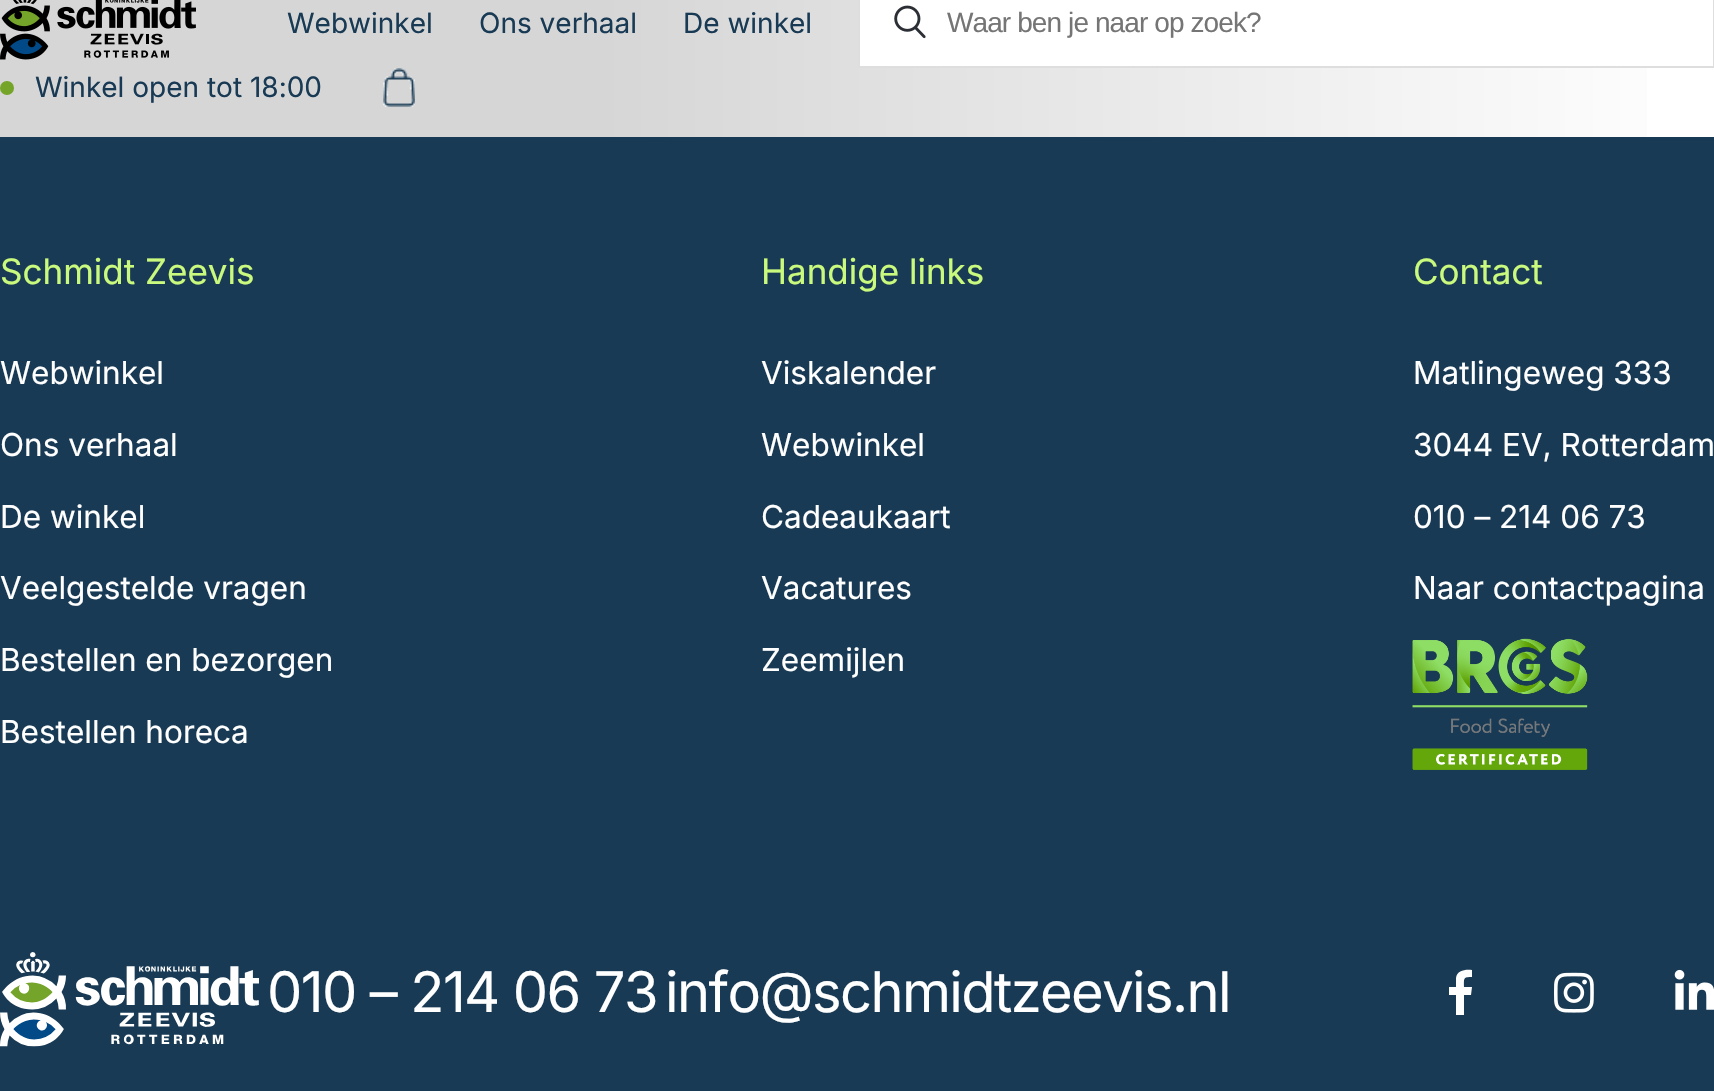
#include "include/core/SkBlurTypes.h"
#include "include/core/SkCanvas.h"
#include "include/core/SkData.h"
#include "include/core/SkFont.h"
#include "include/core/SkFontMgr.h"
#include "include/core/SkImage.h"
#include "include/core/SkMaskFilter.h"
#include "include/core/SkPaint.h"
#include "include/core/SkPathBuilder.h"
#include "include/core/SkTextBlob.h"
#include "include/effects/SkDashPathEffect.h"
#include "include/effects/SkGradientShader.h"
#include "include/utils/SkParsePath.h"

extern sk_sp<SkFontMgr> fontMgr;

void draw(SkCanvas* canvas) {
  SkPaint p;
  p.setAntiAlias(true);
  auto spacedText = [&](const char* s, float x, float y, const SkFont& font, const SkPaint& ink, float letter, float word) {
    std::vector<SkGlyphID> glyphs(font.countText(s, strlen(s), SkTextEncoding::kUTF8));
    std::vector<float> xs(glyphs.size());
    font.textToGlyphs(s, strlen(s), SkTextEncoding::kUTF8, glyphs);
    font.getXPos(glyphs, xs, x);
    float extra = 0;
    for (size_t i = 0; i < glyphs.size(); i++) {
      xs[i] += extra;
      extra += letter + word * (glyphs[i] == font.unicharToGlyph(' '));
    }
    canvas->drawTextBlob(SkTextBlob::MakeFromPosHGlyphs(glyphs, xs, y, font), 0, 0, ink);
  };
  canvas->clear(SK_ColorWHITE);
  {
    const SkColor colors[] = {SkColorSetRGB(214, 214, 214), SK_ColorWHITE};
    const float stops[] = {0.35f, 1};
    const SkPoint ends[] = {{0, 523}, {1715, 523}};
    p.setShader(SkGradientShader::MakeLinear(ends, colors, stops, 2, SkTileMode::kClamp));
    p.setAlpha(255);
  }
  canvas->drawRect(SkRect::MakeLTRB(0, 0, 1647, 137), p);
  canvas->drawImageRect(SkImages::DeferredFromEncodedData(SkData::MakeFromFileName("images/1.png")), SkRect::MakeLTRB(0, 0, 196, 60), SkSamplingOptions());
  p.setShader(nullptr);
  p.setColor(SK_ColorWHITE);
  canvas->drawRect(SkRect::MakeLTRB(860, 0, 1647, 66), p);
  canvas->drawImageRect(SkImages::DeferredFromEncodedData(SkData::MakeFromFileName("images/2.png")), SkRect::MakeLTRB(894, 5, 926, 39), SkSamplingOptions());
  p.setStyle(SkPaint::kStroke_Style);
  p.setStrokeWidth(2);
  p.setColor(SkColorSetRGB(222, 222, 222));
  canvas->drawRect(SkRect::MakeLTRB(859, -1, 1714, 67), p);
  p.setStyle(SkPaint::kFill_Style);
  p.setColor(SkColorSetRGB(116, 164, 40));
  canvas->drawCircle(7, 88, 7, p);
  canvas->drawImageRect(SkImages::DeferredFromEncodedData(SkData::MakeFromFileName("images/3.png")), SkRect::MakeLTRB(383, 68, 415, 107), SkSamplingOptions());
  p.setColor(SkColorSetRGB(25, 58, 84));
  canvas->drawRect(SkRect::MakeLTRB(0, 137, 1714, 1091), p);
  canvas->drawImageRect(SkImages::DeferredFromEncodedData(SkData::MakeFromFileName("images/4.png")), SkRect::MakeLTRB(1412, 638, 1588, 770), SkSamplingOptions());
  canvas->drawImageRect(SkImages::DeferredFromEncodedData(SkData::MakeFromFileName("images/5.png")), SkRect::MakeLTRB(0, 952, 259, 1047), SkSamplingOptions());
  p.setColor(SK_ColorWHITE);
  canvas->drawPath(SkPathBuilder().moveTo(1456, 1015).lineTo(1456, 995).lineTo(1449, 995).lineTo(1449, 987).lineTo(1456, 987).lineTo(1456, 978).cubicTo(1457, 970, 1466, 969, 1472, 970).lineTo(1472, 977).cubicTo(1463, 977, 1464, 978, 1464, 987).lineTo(1472, 987).lineTo(1471, 995).lineTo(1464, 995).lineTo(1464, 1015).close().detach(), p);
  canvas->drawImageRect(SkImages::DeferredFromEncodedData(SkData::MakeFromFileName("images/6.png")), SkRect::MakeLTRB(1554, 972, 1594, 1013), SkSamplingOptions());
  canvas->drawImageRect(SkImages::DeferredFromEncodedData(SkData::MakeFromFileName("images/7.png")), SkRect::MakeLTRB(1674, 969, 1714, 1010), SkSamplingOptions());
  SkFont font1(fontMgr->matchFamilyStyle("Inter", SkFontStyle::Normal()), 28);
  font1.setSubpixel(true);
  p.setColor(SkColorSetRGB(25, 58, 84));
  canvas->drawString("Webwinkel", 287, 33, font1, p);
  canvas->drawString("Ons verhaal", 479, 33, font1, p);
  canvas->drawString("De winkel", 683, 33, font1, p);
  SkFont font2(fontMgr->matchFamilyStyle("Liberation Sans", SkFontStyle::Normal()), 28);
  font2.setSubpixel(true);
  p.setColor(SkColorSetRGB(117, 117, 117));
  spacedText("Waar ben je naar op zoek?", 947, 32, font2, p, -0.9f, 0);
  p.setColor(SkColorSetRGB(25, 58, 84));
  canvas->drawString("Winkel open tot 18:00", 35, 97, font1, p);
  SkFont font3(fontMgr->matchFamilyStyle("Inter", SkFontStyle::Normal()), 35);
  font3.setSubpixel(true);
  p.setColor(SkColorSetRGB(202, 250, 125));
  canvas->drawString("Schmidt Zeevis", 0, 284, font3, p);
  SkFont font4(fontMgr->matchFamilyStyle("Inter", SkFontStyle::Normal()), 31.5f);
  font4.setSubpixel(true);
  p.setColor(SK_ColorWHITE);
  canvas->drawString("Webwinkel", 0, 384, font4, p);
  canvas->drawString("Ons verhaal", 0, 456, font4, p);
  canvas->drawString("De winkel", 0, 528, font4, p);
  canvas->drawString("Veelgestelde vragen", 0, 599, font4, p);
  canvas->drawString("Bestellen en bezorgen", 0, 671, font4, p);
  canvas->drawString("Bestellen horeca", 0, 743, font4, p);
  p.setColor(SkColorSetRGB(202, 250, 125));
  canvas->drawString("Handige links", 761, 284, font3, p);
  p.setColor(SK_ColorWHITE);
  canvas->drawString("Viskalender", 761, 384, font4, p);
  canvas->drawString("Webwinkel", 761, 456, font4, p);
  canvas->drawString("Cadeaukaart", 761, 528, font4, p);
  canvas->drawString("Vacatures", 761, 599, font4, p);
  canvas->drawString("Zeemijlen", 761, 671, font4, p);
  p.setColor(SkColorSetRGB(202, 250, 125));
  canvas->drawString("Contact", 1413, 284, font3, p);
  p.setColor(SK_ColorWHITE);
  canvas->drawString("Matlingeweg 333", 1413, 384, font4, p);
  canvas->drawString("3044 EV, Rotterdam", 1413, 456, font4, p);
  canvas->drawString("010 – 214 06 73", 1413, 528, font4, p);
  canvas->drawString("Naar contactpagina", 1413, 599, font4, p);
  SkFont font5(fontMgr->matchFamilyStyle("Inter", SkFontStyle::Normal()), 56);
  font5.setSubpixel(true);
  spacedText("010 – 214 06 73", 267, 1012, font5, p, -1.6f, 0);
  spacedText("info@schmidtzeevis.nl", 665, 1012, font5, p, -1.6f, 0);
}
